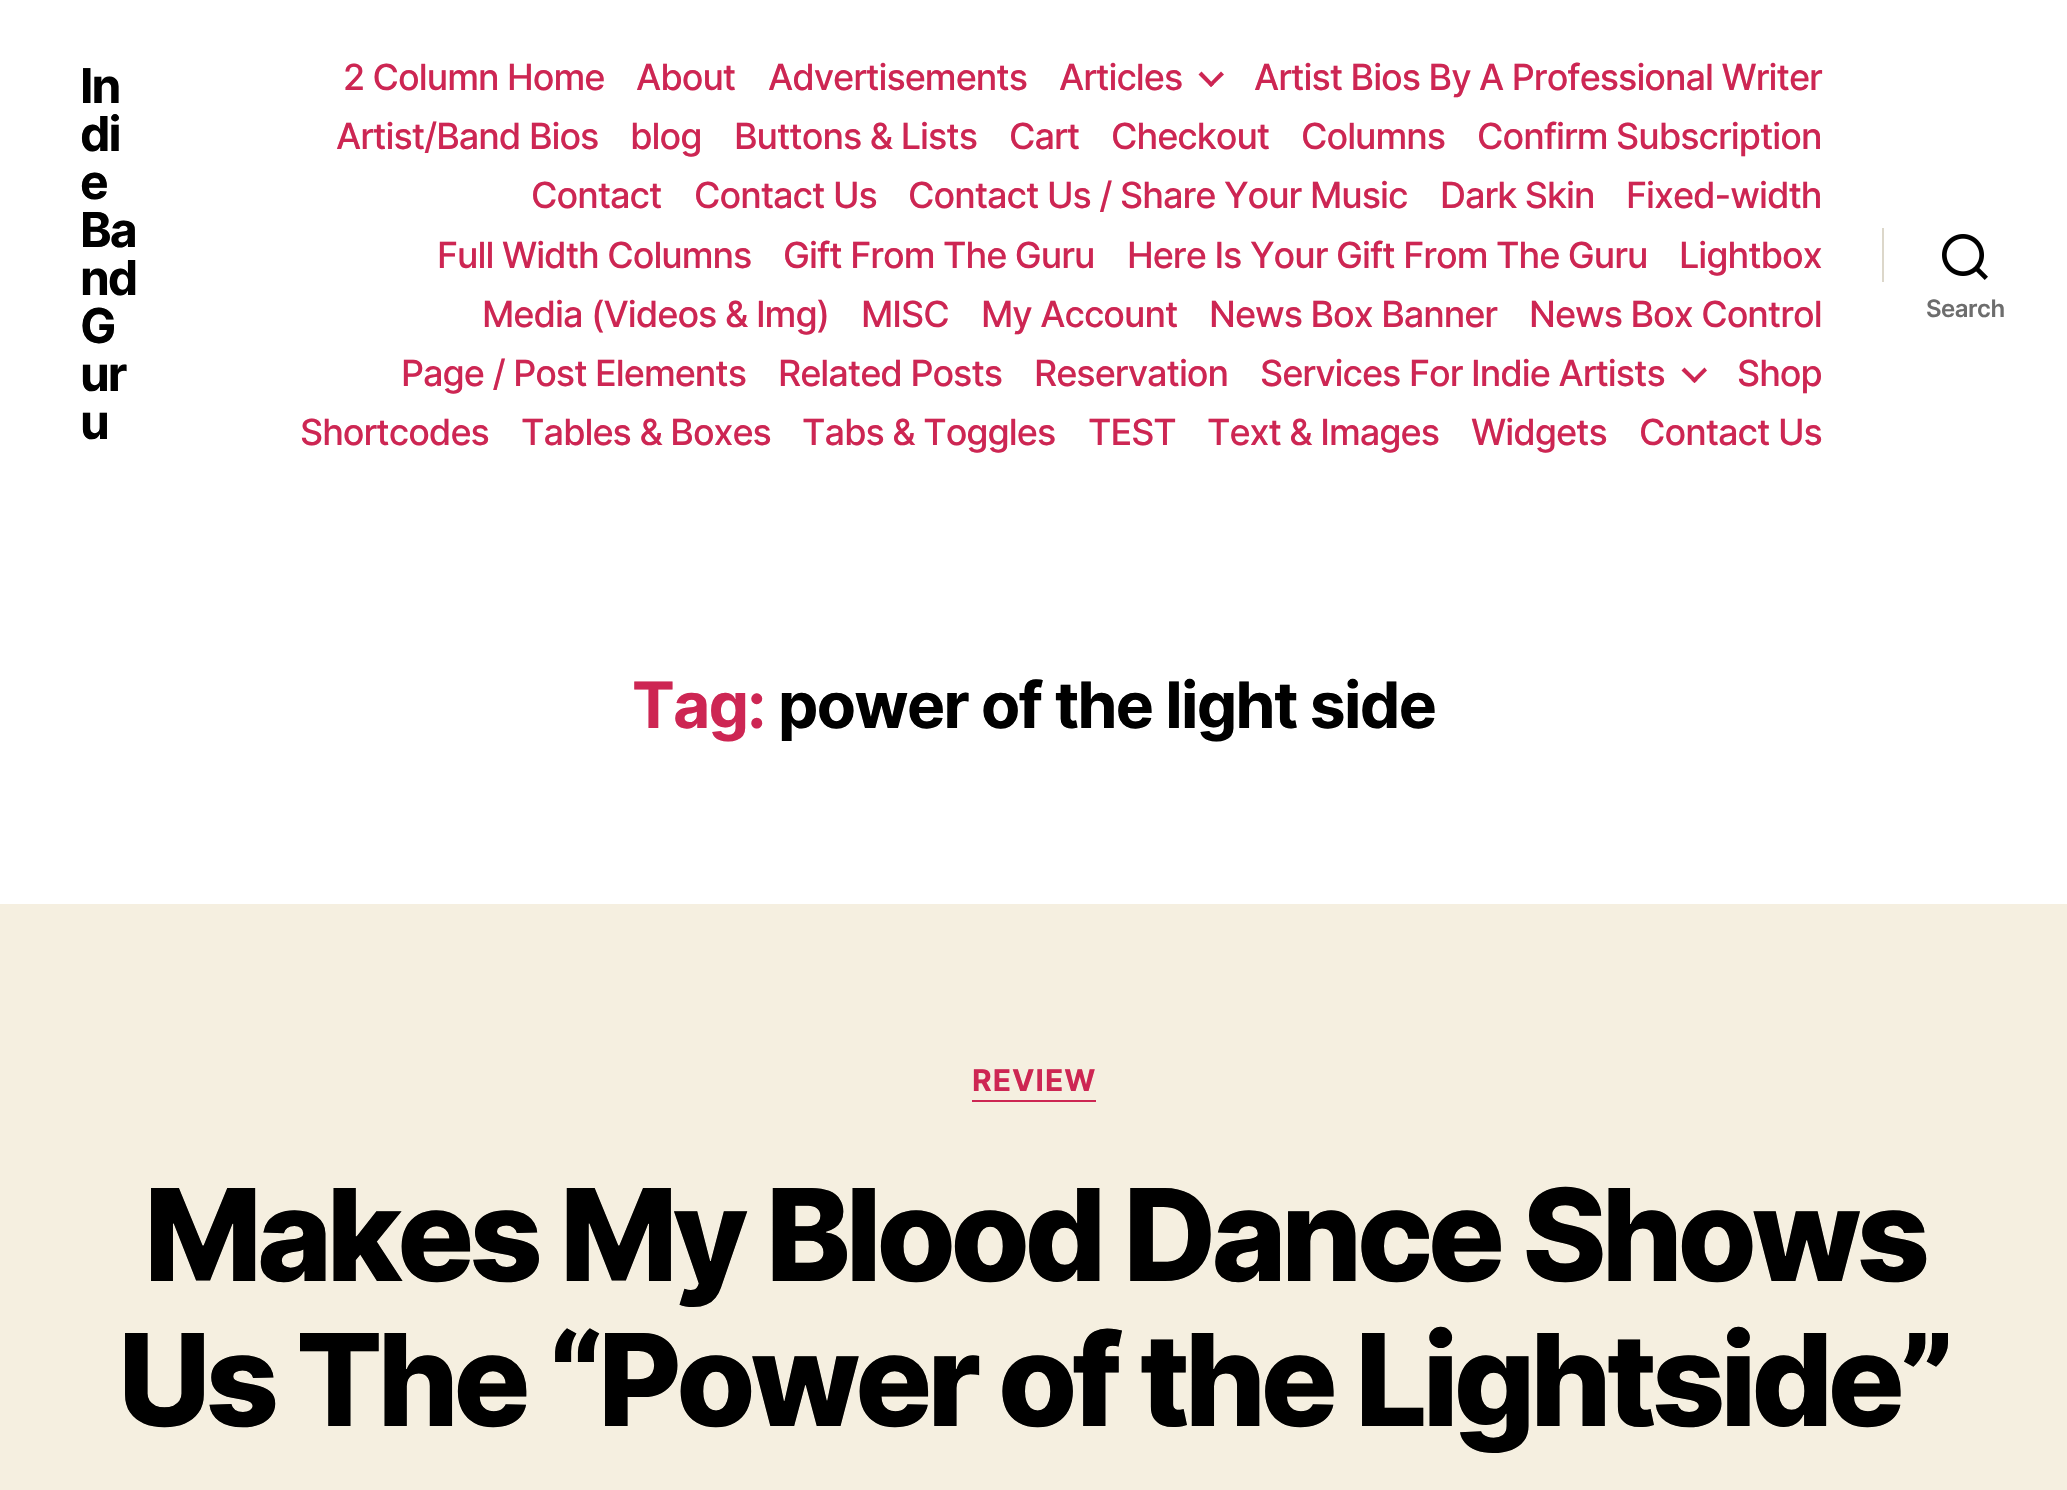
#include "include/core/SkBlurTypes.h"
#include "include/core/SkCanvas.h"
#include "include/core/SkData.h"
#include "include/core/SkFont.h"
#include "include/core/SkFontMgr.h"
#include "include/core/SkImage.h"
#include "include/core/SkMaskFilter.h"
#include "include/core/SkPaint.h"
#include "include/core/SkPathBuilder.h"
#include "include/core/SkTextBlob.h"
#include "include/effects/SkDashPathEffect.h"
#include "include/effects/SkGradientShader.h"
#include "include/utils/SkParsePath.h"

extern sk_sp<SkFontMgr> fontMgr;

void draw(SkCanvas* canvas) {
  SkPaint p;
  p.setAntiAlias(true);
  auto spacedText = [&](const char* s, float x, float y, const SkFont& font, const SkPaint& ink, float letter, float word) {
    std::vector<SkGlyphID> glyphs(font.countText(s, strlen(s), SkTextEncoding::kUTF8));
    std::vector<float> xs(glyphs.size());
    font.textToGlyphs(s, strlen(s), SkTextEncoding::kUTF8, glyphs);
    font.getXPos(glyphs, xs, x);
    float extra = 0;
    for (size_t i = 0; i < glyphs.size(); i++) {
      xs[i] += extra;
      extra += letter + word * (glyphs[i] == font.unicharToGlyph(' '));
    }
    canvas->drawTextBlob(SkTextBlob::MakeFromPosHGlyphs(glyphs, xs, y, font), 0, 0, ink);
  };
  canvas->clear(SkColorSetRGB(245, 239, 224));
  p.setColor(SK_ColorWHITE);
  canvas->drawRect(SkRect::MakeLTRB(0, 0, 2067, 904), p);
  p.setColor(SkColorSetRGB(205, 38, 83));
  canvas->drawPath(SkPathBuilder().moveTo(1198.5f, 74.5f).lineTo(1201.5f, 71.5f).lineTo(1214, 84.5f).lineTo(1211, 87).close().detach(), p);
  canvas->drawPath(SkPathBuilder().moveTo(1208.5f, 84.5f).lineTo(1221, 71.5f).lineTo(1224, 74.5f).lineTo(1211, 87).close().detach(), p);
  canvas->drawPath(SkPathBuilder().moveTo(1681.5f, 370.5f).lineTo(1684.5f, 367.5f).lineTo(1697.5f, 380.5f).lineTo(1694.5f, 383).close().detach(), p);
  canvas->drawPath(SkPathBuilder().moveTo(1691.5f, 380.5f).lineTo(1704.5f, 367.5f).lineTo(1707, 370.5f).lineTo(1694.5f, 383).close().detach(), p);
  p.setColor(SkColorSetRGB(220, 215, 202));
  canvas->drawRect(SkRect::MakeLTRB(1882, 228, 1884, 282), p);
  canvas->drawImageRect(SkImages::DeferredFromEncodedData(SkData::MakeFromFileName("images/1.png")), SkRect::MakeLTRB(1942, 234, 1988, 280), SkSamplingOptions());
  p.setColor(SkColorSetRGB(205, 38, 83));
  canvas->drawRect(SkRect::MakeLTRB(972, 1100, 1096, 1102), p);
  SkFont font1(fontMgr->matchFamilyStyle("Inter", SkFontStyle::Bold()), 48);
  font1.setSubpixel(true);
  p.setColor(SK_ColorBLACK);
  spacedText("In", 80, 103, font1, p, -2, 0);
  spacedText("di", 80, 151, font1, p, -2, 0);
  spacedText("e", 80, 199, font1, p, -2, 0);
  spacedText("Ba", 80, 247, font1, p, -2, 0);
  spacedText("nd", 80, 295, font1, p, -2, 0);
  spacedText("G", 80, 343, font1, p, -2, 0);
  spacedText("ur", 80, 391, font1, p, -2, 0);
  spacedText("u", 80, 439, font1, p, -2, 0);
  SkFont font2(fontMgr->matchFamilyStyle("Inter", SkFontStyle(500, SkFontStyle::kNormal_Width, SkFontStyle::kUpright_Slant)), 36);
  font2.setSubpixel(true);
  p.setColor(SkColorSetRGB(205, 38, 83));
  spacedText("2 Column Home", 343, 90, font2, p, -1, 0);
  spacedText("About", 636, 90, font2, p, -1, 0);
  spacedText("Advertisements", 768, 90, font2, p, -1, 0);
  spacedText("Articles", 1059, 90, font2, p, -1, 0);
  spacedText("Artist Bios By A Professional Writer", 1254, 90, font2, p, -1, 0);
  spacedText("Artist/Band Bios", 336, 149, font2, p, -1, 0);
  spacedText("blog", 630, 149, font2, p, -1, 0);
  spacedText("Buttons & Lists", 734, 149, font2, p, -1, 0);
  spacedText("Cart", 1009, 149, font2, p, -1, 0);
  spacedText("Checkout", 1111, 149, font2, p, -1, 0);
  spacedText("Columns", 1301, 149, font2, p, -1, 0);
  spacedText("Confirm Subscription", 1477, 149, font2, p, -1, 0);
  spacedText("Contact", 531, 208, font2, p, -1, 0);
  spacedText("Contact Us", 694, 208, font2, p, -1, 0);
  spacedText("Contact Us / Share Your Music", 908, 208, font2, p, -1, 0);
  spacedText("Dark Skin", 1440, 208, font2, p, -1, 0);
  spacedText("Fixed-width", 1626, 208, font2, p, -1, 0);
  spacedText("Full Width Columns", 437, 268, font2, p, -1, 0);
  spacedText("Gift From The Guru", 783, 268, font2, p, -1, 0);
  spacedText("Here Is Your Gift From The Guru", 1127, 268, font2, p, -1, 0);
  spacedText("Lightbox", 1679, 268, font2, p, -1, 0);
  spacedText("Media (Videos & Img)", 482, 327, font2, p, -1, 0);
  spacedText("MISC", 861, 327, font2, p, -1, 0);
  spacedText("My Account", 981, 327, font2, p, -1, 0);
  spacedText("News Box Banner", 1209, 327, font2, p, -1, 0);
  spacedText("News Box Control", 1529, 327, font2, p, -1, 0);
  spacedText("Page / Post Elements", 401, 386, font2, p, -1, 0);
  spacedText("Related Posts", 778, 386, font2, p, -1, 0);
  spacedText("Reservation", 1034, 386, font2, p, -1, 0);
  spacedText("Services For Indie Artists", 1260, 386, font2, p, -1, 0);
  spacedText("Shop", 1737, 386, font2, p, -1, 0);
  spacedText("Shortcodes", 300, 445, font2, p, -1, 0);
  spacedText("Tables & Boxes", 521, 445, font2, p, -1, 0);
  spacedText("Tabs & Toggles", 802, 445, font2, p, -1, 0);
  spacedText("TEST", 1088, 445, font2, p, -1, 0);
  spacedText("Text & Images", 1207, 445, font2, p, -1, 0);
  spacedText("Widgets", 1471, 445, font2, p, -1, 0);
  spacedText("Contact Us", 1639, 445, font2, p, -1, 0);
  SkFont font3(fontMgr->matchFamilyStyle("Inter", SkFontStyle(600, SkFontStyle::kNormal_Width, SkFontStyle::kUpright_Slant)), 24);
  font3.setSubpixel(true);
  p.setColor(SkColorSetRGB(109, 109, 109));
  spacedText("Search", 1926, 317, font3, p, -0.5f, 0);
  SkFont font4(fontMgr->matchFamilyStyle("Inter", SkFontStyle::Bold()), 64);
  font4.setSubpixel(true);
  p.setColor(SkColorSetRGB(205, 38, 83));
  spacedText("Tag:", 632, 728, font4, p, -1.75f, 0);
  p.setColor(SK_ColorBLACK);
  spacedText("power of the light side", 778, 728, font4, p, -1.75f, 0);
  SkFont font5(fontMgr->matchFamilyStyle("Inter", SkFontStyle::Bold()), 30);
  font5.setSubpixel(true);
  p.setColor(SkColorSetRGB(205, 38, 83));
  spacedText("REVIEW", 972, 1091, font5, p, 1, 0);
  SkFont font6(fontMgr->matchFamilyStyle("Inter", SkFontStyle(800, SkFontStyle::kNormal_Width, SkFontStyle::kUpright_Slant)), 128);
  font6.setSubpixel(true);
  p.setColor(SK_ColorBLACK);
  spacedText("Makes My Blood Dance Shows", 144, 1281, font6, p, -5.3f, 0);
  spacedText("Us The “Power of the Lightside”", 118, 1426, font6, p, -5.3f, 0);
}
